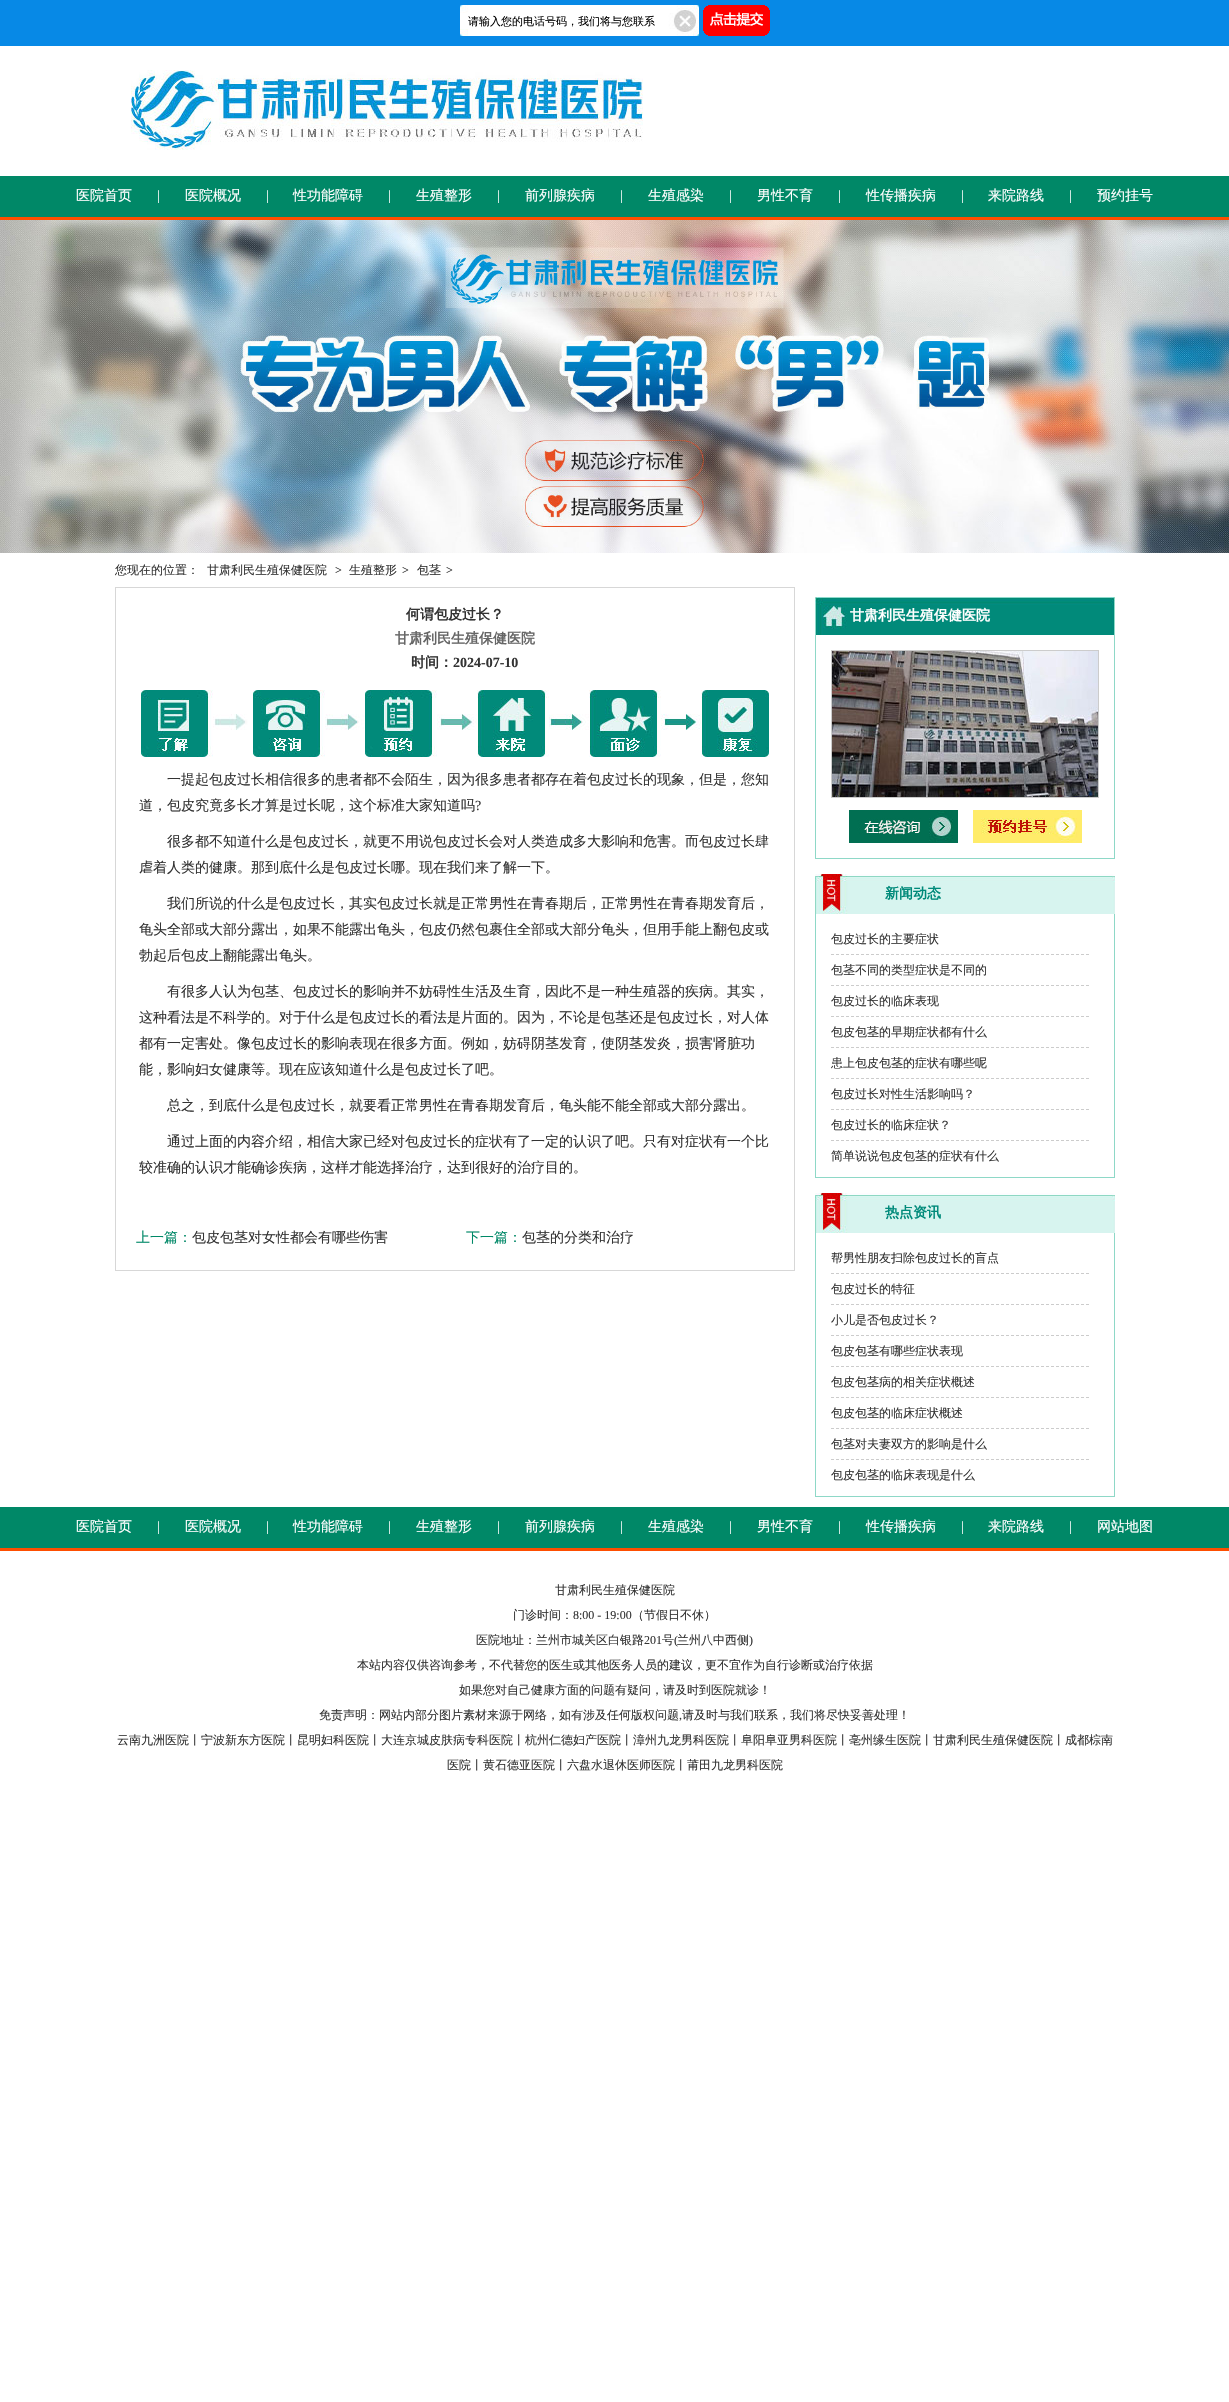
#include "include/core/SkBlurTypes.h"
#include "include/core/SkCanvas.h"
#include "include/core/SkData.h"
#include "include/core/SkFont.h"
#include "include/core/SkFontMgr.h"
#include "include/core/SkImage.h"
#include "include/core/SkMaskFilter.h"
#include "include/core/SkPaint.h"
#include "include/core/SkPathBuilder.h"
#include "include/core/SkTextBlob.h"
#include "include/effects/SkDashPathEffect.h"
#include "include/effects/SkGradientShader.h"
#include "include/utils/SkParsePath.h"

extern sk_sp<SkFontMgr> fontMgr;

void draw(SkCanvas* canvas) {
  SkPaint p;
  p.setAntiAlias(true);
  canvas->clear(SK_ColorWHITE);
  p.setColor(SkColorSetRGB(7, 137, 230));
  canvas->drawRect(SkRect::MakeLTRB(0, 0, 1229, 46), p);
  canvas->drawImageRect(SkImages::DeferredFromEncodedData(SkData::MakeFromFileName("images/1.png")), SkRect::MakeLTRB(460, 5, 699, 36), SkSamplingOptions());
  canvas->drawImageRect(SkImages::DeferredFromEncodedData(SkData::MakeFromFileName("images/2.png")), SkRect::MakeLTRB(703, 5, 770, 36), SkSamplingOptions());
  canvas->drawImageRect(SkImages::DeferredFromEncodedData(SkData::MakeFromFileName("images/3.png")), SkRect::MakeLTRB(131, 70, 643, 150), SkSamplingOptions());
  p.setColor(SkColorSetRGB(0, 136, 103));
  canvas->drawRect(SkRect::MakeLTRB(0, 176, 1229, 217), p);
  p.setColor(SkColorSetRGB(254, 78, 0));
  canvas->drawRect(SkRect::MakeLTRB(0, 217, 1229, 220), p);
  canvas->drawImageRect(SkImages::DeferredFromEncodedData(SkData::MakeFromFileName("images/4.png")), SkRect::MakeLTRB(0, 220, 1229, 553), SkSamplingOptions());
  p.setStyle(SkPaint::kStroke_Style);
  p.setStrokeWidth(1);
  p.setColor(SkColorSetRGB(215, 215, 215));
  canvas->drawRect(SkRect::MakeLTRB(115.5f, 587.5f, 794.5f, 1270.5f), p);
  canvas->drawImageRect(SkImages::DeferredFromEncodedData(SkData::MakeFromFileName("images/5.png")), SkRect::MakeLTRB(141, 690, 769, 757), SkSamplingOptions());
  canvas->drawImageRect(SkImages::DeferredFromEncodedData(SkData::MakeFromFileName("images/6.png")), SkRect::MakeLTRB(815, 597, 1115, 635), SkSamplingOptions());
  p.setStyle(SkPaint::kFill_Style);
  p.setColor(SkColorSetRGB(142, 216, 199));
  canvas->drawRect(SkRect::MakeLTRB(1114, 635, 1115, 859), p);
  canvas->drawRect(SkRect::MakeLTRB(815, 858, 1115, 859), p);
  canvas->drawRect(SkRect::MakeLTRB(815, 635, 816, 859), p);
  p.setStyle(SkPaint::kStroke_Style);
  p.setColor(SkColorSetRGB(204, 204, 204));
  canvas->drawRect(SkRect::MakeLTRB(831.5f, 650.5f, 1098.5f, 797.5f), p);
  canvas->drawImageRect(SkImages::DeferredFromEncodedData(SkData::MakeFromFileName("images/7.png")), SkRect::MakeLTRB(832, 651, 1098, 797), SkSamplingOptions());
  canvas->drawImageRect(SkImages::DeferredFromEncodedData(SkData::MakeFromFileName("images/8.png")), SkRect::MakeLTRB(849, 810, 958, 843), SkSamplingOptions());
  canvas->drawImageRect(SkImages::DeferredFromEncodedData(SkData::MakeFromFileName("images/9.png")), SkRect::MakeLTRB(973, 810, 1082, 843), SkSamplingOptions());
  canvas->drawImageRect(SkImages::DeferredFromEncodedData(SkData::MakeFromFileName("images/10.png")), SkRect::MakeLTRB(815, 874, 1115, 914), SkSamplingOptions());
  p.setStyle(SkPaint::kFill_Style);
  p.setColor(SkColorSetRGB(142, 216, 199));
  canvas->drawRect(SkRect::MakeLTRB(1114, 914, 1115, 1178), p);
  canvas->drawRect(SkRect::MakeLTRB(815, 1177, 1115, 1178), p);
  canvas->drawRect(SkRect::MakeLTRB(815, 914, 816, 1178), p);
  p.setStyle(SkPaint::kStroke_Style);
  p.setColor(SkColorSetRGB(204, 204, 204));
  p.setPathEffect(SkDashPathEffect::Make({{3, 2}}, 0));
  canvas->drawPath(SkPathBuilder().moveTo(831, 954.5f).lineTo(1089, 954.5f).detach(), p);
  p.setPathEffect(nullptr);
  p.setPathEffect(SkDashPathEffect::Make({{3, 2}}, 0));
  canvas->drawPath(SkPathBuilder().moveTo(831, 985.5f).lineTo(1089, 985.5f).detach(), p);
  p.setPathEffect(nullptr);
  p.setPathEffect(SkDashPathEffect::Make({{3, 2}}, 0));
  canvas->drawPath(SkPathBuilder().moveTo(831, 1016.5f).lineTo(1089, 1016.5f).detach(), p);
  p.setPathEffect(nullptr);
  p.setPathEffect(SkDashPathEffect::Make({{3, 2}}, 0));
  canvas->drawPath(SkPathBuilder().moveTo(831, 1047.5f).lineTo(1089, 1047.5f).detach(), p);
  p.setPathEffect(nullptr);
  p.setPathEffect(SkDashPathEffect::Make({{3, 2}}, 0));
  canvas->drawPath(SkPathBuilder().moveTo(831, 1078.5f).lineTo(1089, 1078.5f).detach(), p);
  p.setPathEffect(nullptr);
  p.setPathEffect(SkDashPathEffect::Make({{3, 2}}, 0));
  canvas->drawPath(SkPathBuilder().moveTo(831, 1109.5f).lineTo(1089, 1109.5f).detach(), p);
  p.setPathEffect(nullptr);
  p.setPathEffect(SkDashPathEffect::Make({{3, 2}}, 0));
  canvas->drawPath(SkPathBuilder().moveTo(831, 1140.5f).lineTo(1089, 1140.5f).detach(), p);
  p.setPathEffect(nullptr);
  canvas->drawImageRect(SkImages::DeferredFromEncodedData(SkData::MakeFromFileName("images/10.png")), SkRect::MakeLTRB(815, 1193, 1115, 1233), SkSamplingOptions());
  p.setStyle(SkPaint::kFill_Style);
  p.setColor(SkColorSetRGB(142, 216, 199));
  canvas->drawRect(SkRect::MakeLTRB(1114, 1233, 1115, 1497), p);
  canvas->drawRect(SkRect::MakeLTRB(815, 1496, 1115, 1497), p);
  canvas->drawRect(SkRect::MakeLTRB(815, 1233, 816, 1497), p);
  p.setStyle(SkPaint::kStroke_Style);
  p.setColor(SkColorSetRGB(204, 204, 204));
  p.setPathEffect(SkDashPathEffect::Make({{3, 2}}, 0));
  canvas->drawPath(SkPathBuilder().moveTo(831, 1273.5f).lineTo(1089, 1273.5f).detach(), p);
  p.setPathEffect(nullptr);
  p.setPathEffect(SkDashPathEffect::Make({{3, 2}}, 0));
  canvas->drawPath(SkPathBuilder().moveTo(831, 1304.5f).lineTo(1089, 1304.5f).detach(), p);
  p.setPathEffect(nullptr);
  p.setPathEffect(SkDashPathEffect::Make({{3, 2}}, 0));
  canvas->drawPath(SkPathBuilder().moveTo(831, 1335.5f).lineTo(1089, 1335.5f).detach(), p);
  p.setPathEffect(nullptr);
  p.setPathEffect(SkDashPathEffect::Make({{3, 2}}, 0));
  canvas->drawPath(SkPathBuilder().moveTo(831, 1366.5f).lineTo(1089, 1366.5f).detach(), p);
  p.setPathEffect(nullptr);
  p.setPathEffect(SkDashPathEffect::Make({{3, 2}}, 0));
  canvas->drawPath(SkPathBuilder().moveTo(831, 1397.5f).lineTo(1089, 1397.5f).detach(), p);
  p.setPathEffect(nullptr);
  p.setPathEffect(SkDashPathEffect::Make({{3, 2}}, 0));
  canvas->drawPath(SkPathBuilder().moveTo(831, 1428.5f).lineTo(1089, 1428.5f).detach(), p);
  p.setPathEffect(nullptr);
  p.setPathEffect(SkDashPathEffect::Make({{3, 2}}, 0));
  canvas->drawPath(SkPathBuilder().moveTo(831, 1459.5f).lineTo(1089, 1459.5f).detach(), p);
  p.setPathEffect(nullptr);
  p.setStyle(SkPaint::kFill_Style);
  p.setColor(SkColorSetRGB(0, 136, 103));
  canvas->drawRect(SkRect::MakeLTRB(0, 1507, 1229, 1548), p);
  p.setColor(SkColorSetRGB(254, 78, 0));
  canvas->drawRect(SkRect::MakeLTRB(0, 1548, 1229, 1551), p);
  SkFont font1(fontMgr->matchFamilyStyle("WenQuanYi Zen Hei", SkFontStyle(500, SkFontStyle::kNormal_Width, SkFontStyle::kUpright_Slant)), 11);
  font1.setSubpixel(true);
  p.setColor(SK_ColorBLACK);
  canvas->drawString("请输入您的电话号码，我们将与您联系", 468, 25, font1, p);
  SkFont font2(fontMgr->matchFamilyStyle("WenQuanYi Zen Hei", SkFontStyle(500, SkFontStyle::kNormal_Width, SkFontStyle::kUpright_Slant)), 14);
  font2.setSubpixel(true);
  p.setColor(SK_ColorWHITE);
  canvas->drawString("医院首页", 76, 200, font2, p);
  SkFont font3(fontMgr->matchFamilyStyle("Liberation Serif", SkFontStyle::Normal()), 14);
  font3.setSubpixel(true);
  canvas->drawString("|", 157, 200, font3, p);
  canvas->drawString("医院概况", 185, 200, font2, p);
  canvas->drawString("|", 266, 200, font3, p);
  canvas->drawString("性功能障碍", 293, 200, font2, p);
  canvas->drawString("|", 388, 200, font3, p);
  canvas->drawString("生殖整形", 416, 200, font2, p);
  canvas->drawString("|", 497, 200, font3, p);
  canvas->drawString("前列腺疾病", 525, 200, font2, p);
  canvas->drawString("|", 620, 200, font3, p);
  canvas->drawString("生殖感染", 648, 200, font2, p);
  canvas->drawString("|", 729, 200, font3, p);
  canvas->drawString("男性不育", 757, 200, font2, p);
  canvas->drawString("|", 838, 200, font3, p);
  canvas->drawString("性传播疾病", 866, 200, font2, p);
  canvas->drawString("|", 961, 200, font3, p);
  canvas->drawString("来院路线", 988, 200, font2, p);
  canvas->drawString("|", 1069, 200, font3, p);
  canvas->drawString("预约挂号", 1097, 200, font2, p);
  SkFont font4(fontMgr->matchFamilyStyle("WenQuanYi Zen Hei", SkFontStyle(500, SkFontStyle::kNormal_Width, SkFontStyle::kUpright_Slant)), 12);
  font4.setSubpixel(true);
  p.setColor(SkColorSetRGB(51, 51, 51));
  canvas->drawString("您现在的位置：", 115, 574, font4, p);
  canvas->drawString("甘肃利民生殖保健医院", 207, 574, font4, p);
  SkFont font5(fontMgr->matchFamilyStyle("Liberation Serif", SkFontStyle::Normal()), 12);
  font5.setSubpixel(true);
  canvas->drawString(">", 335, 574, font5, p);
  canvas->drawString("生殖整形", 349, 574, font4, p);
  canvas->drawString(">", 402, 574, font5, p);
  canvas->drawString("包茎", 417, 574, font4, p);
  canvas->drawString(">", 446, 574, font5, p);
  SkFont font6(fontMgr->matchFamilyStyle("WenQuanYi Zen Hei", SkFontStyle::Bold()), 14);
  font6.setSubpixel(true);
  canvas->drawString("何谓包皮过长？", 406, 619, font6, p);
  p.setColor(SkColorSetRGB(102, 102, 102));
  canvas->drawString("甘肃利民生殖保健医院", 395, 643, font6, p);
  p.setColor(SkColorSetRGB(51, 51, 51));
  canvas->drawString("时间：", 411, 667, font6, p);
  SkFont font7(fontMgr->matchFamilyStyle("Liberation Serif", SkFontStyle::Bold()), 14);
  font7.setSubpixel(true);
  canvas->drawString("2024-07-10", 453, 667, font7, p);
  canvas->drawString("一提起包皮过长相信很多的患者都不会陌生，因为很多患者都存在着包皮过长的现象，但是，您知", 167, 784, font2, p);
  canvas->drawString("道，包皮究竟多长才算是过长呢，这个标准大家知道吗", 139, 810, font2, p);
  canvas->drawString("?", 475, 810, font3, p);
  canvas->drawString("很多都不知道什么是包皮过长，就更不用说包皮过长会对人类造成多大影响和危害。而包皮过长肆", 167, 846, font2, p);
  canvas->drawString("虐着人类的健康。那到底什么是包皮过长哪。现在我们来了解一下。", 139, 872, font2, p);
  canvas->drawString("我们所说的什么是包皮过长，其实包皮过长就是正常男性在青春期后，正常男性在青春期发育后，", 167, 908, font2, p);
  canvas->drawString("龟头全部或大部分露出，如果不能露出龟头，包皮仍然包裹住全部或大部分龟头，但用手能上翻包皮或", 139, 934, font2, p);
  canvas->drawString("勃起后包皮上翻能露出龟头。", 139, 960, font2, p);
  canvas->drawString("有很多人认为包茎、包皮过长的影响并不妨碍性生活及生育，因此不是一种生殖器的疾病。其实，", 167, 996, font2, p);
  canvas->drawString("这种看法是不科学的。对于什么是包皮过长的看法是片面的。因为，不论是包茎还是包皮过长，对人体", 139, 1022, font2, p);
  canvas->drawString("都有一定害处。像包皮过长的影响表现在很多方面。例如，妨碍阴茎发育，使阴茎发炎，损害肾脏功", 139, 1048, font2, p);
  canvas->drawString("能，影响妇女健康等。现在应该知道什么是包皮过长了吧。", 139, 1074, font2, p);
  canvas->drawString("总之，到底什么是包皮过长，就要看正常男性在青春期发育后，龟头能不能全部或大部分露出。", 167, 1110, font2, p);
  canvas->drawString("通过上面的内容介绍，相信大家已经对包皮过长的症状有了一定的认识了吧。只有对症状有一个比", 167, 1146, font2, p);
  canvas->save();
  canvas->clipRect(SkRect::MakeLTRB(139, 767, 777, 1191));
  canvas->drawString("较准确的认识才能确诊疾病，这样才能选择治疗，达到很好的治疗目的。", 139, 1172, font2, p);
  canvas->restore();
  p.setColor(SkColorSetRGB(0, 136, 103));
  canvas->drawString("上一篇：", 136, 1242, font2, p);
  p.setColor(SkColorSetRGB(51, 51, 51));
  canvas->drawString("包皮包茎对女性都会有哪些伤害", 192, 1242, font2, p);
  p.setColor(SkColorSetRGB(0, 136, 103));
  canvas->drawString("下一篇：", 466, 1242, font2, p);
  p.setColor(SkColorSetRGB(51, 51, 51));
  canvas->drawString("包茎的分类和治疗", 522, 1242, font2, p);
  p.setColor(SK_ColorWHITE);
  canvas->drawString("甘肃利民生殖保健医院", 850, 620, font6, p);
  p.setColor(SkColorSetRGB(0, 138, 122));
  canvas->drawString("新闻动态", 885, 898, font6, p);
  p.setColor(SkColorSetRGB(51, 51, 51));
  canvas->drawString("包皮过长的主要症状", 831, 943, font4, p);
  canvas->drawString("包茎不同的类型症状是不同的", 831, 974, font4, p);
  canvas->drawString("包皮过长的临床表现", 831, 1005, font4, p);
  canvas->drawString("包皮包茎的早期症状都有什么", 831, 1036, font4, p);
  canvas->drawString("患上包皮包茎的症状有哪些呢", 831, 1067, font4, p);
  canvas->drawString("包皮过长对性生活影响吗？", 831, 1098, font4, p);
  canvas->drawString("包皮过长的临床症状？", 831, 1129, font4, p);
  canvas->drawString("简单说说包皮包茎的症状有什么", 831, 1160, font4, p);
  p.setColor(SkColorSetRGB(0, 138, 122));
  canvas->drawString("热点资讯", 885, 1217, font6, p);
  p.setColor(SkColorSetRGB(51, 51, 51));
  canvas->drawString("帮男性朋友扫除包皮过长的盲点", 831, 1262, font4, p);
  canvas->drawString("包皮过长的特征", 831, 1293, font4, p);
  canvas->drawString("小儿是否包皮过长？", 831, 1324, font4, p);
  canvas->drawString("包皮包茎有哪些症状表现", 831, 1355, font4, p);
  canvas->drawString("包皮包茎病的相关症状概述", 831, 1386, font4, p);
  canvas->drawString("包皮包茎的临床症状概述", 831, 1417, font4, p);
  canvas->drawString("包茎对夫妻双方的影响是什么", 831, 1448, font4, p);
  canvas->drawString("包皮包茎的临床表现是什么", 831, 1479, font4, p);
  p.setColor(SK_ColorWHITE);
  canvas->drawString("医院首页", 76, 1531, font2, p);
  canvas->drawString("|", 157, 1531, font3, p);
  canvas->drawString("医院概况", 185, 1531, font2, p);
  canvas->drawString("|", 266, 1531, font3, p);
  canvas->drawString("性功能障碍", 293, 1531, font2, p);
  canvas->drawString("|", 388, 1531, font3, p);
  canvas->drawString("生殖整形", 416, 1531, font2, p);
  canvas->drawString("|", 497, 1531, font3, p);
  canvas->drawString("前列腺疾病", 525, 1531, font2, p);
  canvas->drawString("|", 620, 1531, font3, p);
  canvas->drawString("生殖感染", 648, 1531, font2, p);
  canvas->drawString("|", 729, 1531, font3, p);
  canvas->drawString("男性不育", 757, 1531, font2, p);
  canvas->drawString("|", 838, 1531, font3, p);
  canvas->drawString("性传播疾病", 866, 1531, font2, p);
  canvas->drawString("|", 961, 1531, font3, p);
  canvas->drawString("来院路线", 988, 1531, font2, p);
  canvas->drawString("|", 1069, 1531, font3, p);
  canvas->drawString("网站地图", 1097, 1531, font2, p);
  p.setColor(SkColorSetRGB(51, 51, 51));
  canvas->drawString("甘肃利民生殖保健医院", 555, 1594, font4, p);
  canvas->drawString("门诊时间：", 513, 1619, font4, p);
  canvas->drawString("8:00 - 19:00", 573, 1619, font5, p);
  canvas->drawString("（节假日不休）", 632, 1619, font4, p);
  canvas->drawString("医院地址：兰州市城关区白银路", 476, 1644, font4, p);
  canvas->drawString("201", 644, 1644, font5, p);
  canvas->drawString("号", 662, 1644, font4, p);
  canvas->drawString("(", 674, 1644, font5, p);
  canvas->drawString("兰州八中西侧", 677, 1644, font4, p);
  canvas->drawString(")", 749, 1644, font5, p);
  canvas->drawString("本站内容仅供咨询参考，不代替您的医生或其他医务人员的建议，更不宜作为自行诊断或治疗依据", 357, 1669, font4, p);
  canvas->drawString("如果您对自己健康方面的问题有疑问，请及时到医院就诊！", 459, 1694, font4, p);
  canvas->drawString("免责声明：网站内部分图片素材来源于网络，如有涉及任何版权问题", 319, 1719, font4, p);
  canvas->drawString(",", 679, 1719, font5, p);
  canvas->drawString("请及时与我们联系，我们将尽快妥善处理！", 682, 1719, font4, p);
  canvas->drawString("云南九洲医院丨宁波新东方医院丨昆明妇科医院丨大连京城皮肤病专科医院丨杭州仁德妇产医院丨漳州九龙男科医院丨阜阳阜亚男科医院丨亳州缘生医院丨甘肃利民生殖保健医院丨成都棕南", 117, 1744, font4, p);
  canvas->drawString("医院丨黄石德亚医院丨六盘水退休医师医院丨莆田九龙男科医院", 447, 1769, font4, p);
}
